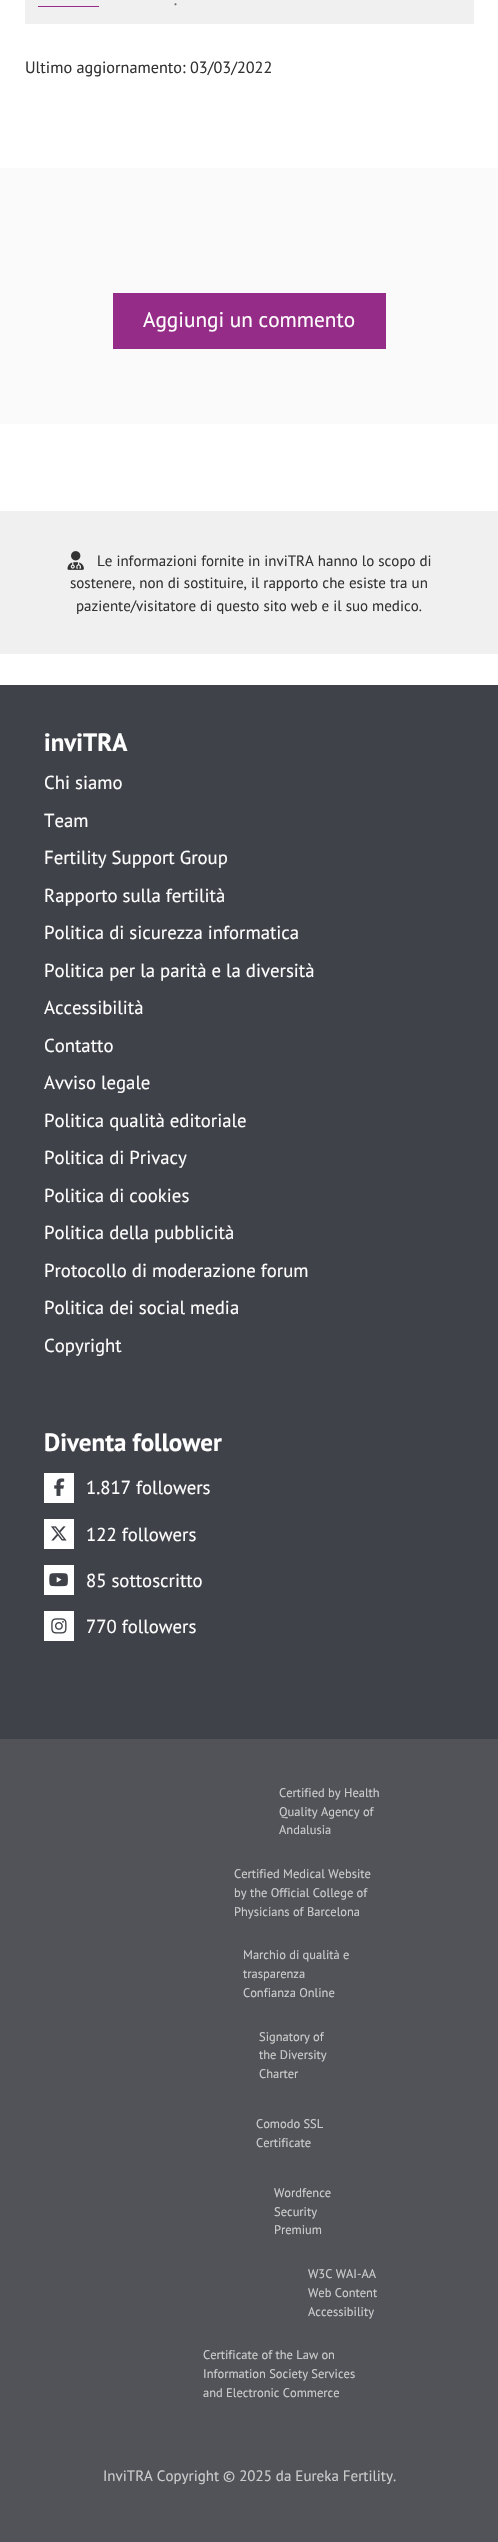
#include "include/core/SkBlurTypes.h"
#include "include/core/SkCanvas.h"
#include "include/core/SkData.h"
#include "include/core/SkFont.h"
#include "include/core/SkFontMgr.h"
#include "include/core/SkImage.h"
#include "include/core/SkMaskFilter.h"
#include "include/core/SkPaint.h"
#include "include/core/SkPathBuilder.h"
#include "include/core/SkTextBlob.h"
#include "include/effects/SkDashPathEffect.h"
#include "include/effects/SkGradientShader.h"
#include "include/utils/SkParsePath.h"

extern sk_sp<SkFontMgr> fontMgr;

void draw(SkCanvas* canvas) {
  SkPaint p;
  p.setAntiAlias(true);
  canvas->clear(SK_ColorWHITE);
  p.setColor(SkColorSetRGB(240, 240, 240));
  canvas->drawRect(SkRect::MakeLTRB(25, 0, 474, 24), p);
  p.setColor(SkColorSetRGB(149, 44, 135));
  canvas->drawRect(SkRect::MakeLTRB(38, 6, 99, 7), p);
  p.setColor(SkColorSetRGB(250, 250, 250));
  canvas->drawRect(SkRect::MakeLTRB(0, 168, 498, 424), p);
  p.setColor(SkColorSetRGB(149, 44, 135));
  canvas->drawRect(SkRect::MakeLTRB(113, 293, 386, 349), p);
  p.setColor(SkColorSetRGB(240, 240, 240));
  canvas->drawRect(SkRect::MakeLTRB(0, 511, 498, 654), p);
  canvas->drawImageRect(SkImages::DeferredFromEncodedData(SkData::MakeFromFileName("images/1.png")), SkRect::MakeLTRB(67, 551, 84, 570), SkSamplingOptions());
  p.setColor(SkColorSetRGB(64, 66, 73));
  canvas->drawRect(SkRect::MakeLTRB(0, 685, 498, 1739), p);
  p.setColor(SK_ColorWHITE);
  canvas->drawRect(SkRect::MakeLTRB(44, 1473, 74, 1503), p);
  canvas->drawImageRect(SkImages::DeferredFromEncodedData(SkData::MakeFromFileName("images/2.png")), SkRect::MakeLTRB(54, 1478, 65, 1496), SkSamplingOptions());
  canvas->drawRect(SkRect::MakeLTRB(44, 1519, 74, 1549), p);
  canvas->drawImageRect(SkImages::DeferredFromEncodedData(SkData::MakeFromFileName("images/3.png")), SkRect::MakeLTRB(51, 1526, 67, 1541), SkSamplingOptions());
  canvas->drawRect(SkRect::MakeLTRB(44, 1565, 74, 1595), p);
  canvas->drawImageRect(SkImages::DeferredFromEncodedData(SkData::MakeFromFileName("images/4.png")), SkRect::MakeLTRB(49, 1573, 68, 1587), SkSamplingOptions());
  canvas->drawRect(SkRect::MakeLTRB(44, 1611, 74, 1641), p);
  canvas->drawImageRect(SkImages::DeferredFromEncodedData(SkData::MakeFromFileName("images/5.png")), SkRect::MakeLTRB(51, 1618, 67, 1634), SkSamplingOptions());
  p.setColor(SkColorSetRGB(82, 83, 88));
  canvas->drawRect(SkRect::MakeLTRB(0, 1739, 498, 2542), p);
  SkFont font1(fontMgr->matchFamilyStyle("PT Sans", SkFontStyle::Italic()), 16.25f);
  font1.setSubpixel(true);
  p.setColor(SkColorSetRGB(107, 107, 107));
  canvas->drawString(".", 174, 5, font1, p);
  SkFont font2(fontMgr->matchFamilyStyle("PT Sans", SkFontStyle::Normal()), 16.25f);
  font2.setSubpixel(true);
  p.setColor(SkColorSetRGB(51, 51, 51));
  canvas->drawString("Ultimo aggiornamento: 03/03/2022", 25, 73, font2, p);
  SkFont font3(fontMgr->matchFamilyStyle("PT Sans", SkFontStyle::Normal()), 21.25f);
  font3.setSubpixel(true);
  p.setColor(SK_ColorWHITE);
  canvas->drawString("Aggiungi un commento", 143, 327, font3, p);
  SkFont font4(fontMgr->matchFamilyStyle("PT Sans", SkFontStyle::Normal()), 15);
  font4.setSubpixel(true);
  p.setColor(SkColorSetRGB(51, 51, 51));
  canvas->drawString("Le informazioni fornite in inviTRA hanno lo scopo di", 97, 566, font4, p);
  canvas->drawString("sostenere, non di sostituire, il rapporto che esiste tra un", 70, 588, font4, p);
  canvas->drawString("paziente/visitatore di questo sito web e il suo medico.", 76, 611, font4, p);
  SkFont font5(fontMgr->matchFamilyStyle("PT Sans", SkFontStyle::Bold()), 25);
  font5.setSubpixel(true);
  p.setColor(SK_ColorWHITE);
  canvas->drawString("inviTRA", 44, 751, font5, p);
  SkFont font6(fontMgr->matchFamilyStyle("PT Sans", SkFontStyle::Normal()), 18.75f);
  font6.setSubpixel(true);
  canvas->drawString("Chi siamo", 44, 789, font6, p);
  canvas->drawString("Team", 44, 827, font6, p);
  canvas->drawString("Fertility Support Group", 44, 864, font6, p);
  canvas->drawString("Rapporto sulla fertilità", 44, 902, font6, p);
  canvas->drawString("Politica di sicurezza informatica", 44, 939, font6, p);
  canvas->drawString("Politica per la parità e la diversità", 44, 977, font6, p);
  canvas->drawString("Accessibilità", 44, 1014, font6, p);
  canvas->drawString("Contatto", 44, 1052, font6, p);
  canvas->drawString("Avviso legale", 44, 1089, font6, p);
  canvas->drawString("Politica qualità editoriale", 44, 1127, font6, p);
  canvas->drawString("Politica di Privacy", 44, 1164, font6, p);
  canvas->drawString("Politica di cookies", 44, 1202, font6, p);
  canvas->drawString("Politica della pubblicità", 44, 1239, font6, p);
  canvas->drawString("Protocollo di moderazione forum", 44, 1277, font6, p);
  canvas->drawString("Politica dei social media", 44, 1314, font6, p);
  canvas->drawString("Copyright", 44, 1352, font6, p);
  canvas->drawString("Diventa follower", 44, 1451, font5, p);
  canvas->drawString("1.817 followers", 86, 1494, font6, p);
  canvas->drawString("122 followers", 86, 1541, font6, p);
  canvas->drawString("85 sottoscritto", 86, 1587, font6, p);
  canvas->drawString("770 followers", 86, 1633, font6, p);
  SkFont font7(fontMgr->matchFamilyStyle("PT Sans", SkFontStyle::Normal()), 12.5f);
  font7.setSubpixel(true);
  p.setColor(SkColorSetRGB(204, 204, 204));
  canvas->drawString("Certified by Health", 279, 1797, font7, p);
  canvas->drawString("Quality Agency of", 279, 1816, font7, p);
  canvas->drawString("Andalusia", 279, 1834, font7, p);
  canvas->drawString("Certified Medical Website", 234, 1878, font7, p);
  canvas->drawString("by the Official College of", 234, 1897, font7, p);
  canvas->drawString("Physicians of Barcelona", 234, 1916, font7, p);
  canvas->drawString("Marchio di qualità e", 243, 1959, font7, p);
  canvas->drawString("trasparenza", 243, 1978, font7, p);
  canvas->drawString("Confianza Online", 243, 1997, font7, p);
  canvas->drawString("Signatory of", 259, 2041, font7, p);
  canvas->drawString("the Diversity", 259, 2059, font7, p);
  canvas->drawString("Charter", 259, 2078, font7, p);
  canvas->drawString("Comodo SSL", 256, 2128, font7, p);
  canvas->drawString("Certificate", 256, 2147, font7, p);
  canvas->drawString("Wordfence", 274, 2197, font7, p);
  canvas->drawString("Security", 274, 2216, font7, p);
  canvas->drawString("Premium", 274, 2234, font7, p);
  canvas->drawString("W3C WAI-AA", 308, 2278, font7, p);
  canvas->drawString("Web Content", 308, 2297, font7, p);
  canvas->drawString("Accessibility", 308, 2316, font7, p);
  canvas->drawString("Certificate of the Law on", 203, 2359, font7, p);
  canvas->drawString("Information Society Services", 203, 2378, font7, p);
  canvas->drawString("and Electronic Commerce", 203, 2397, font7, p);
  canvas->drawString("InviTRA Copyright © 2025 da Eureka Fertility.", 103, 2481, font4, p);
}
